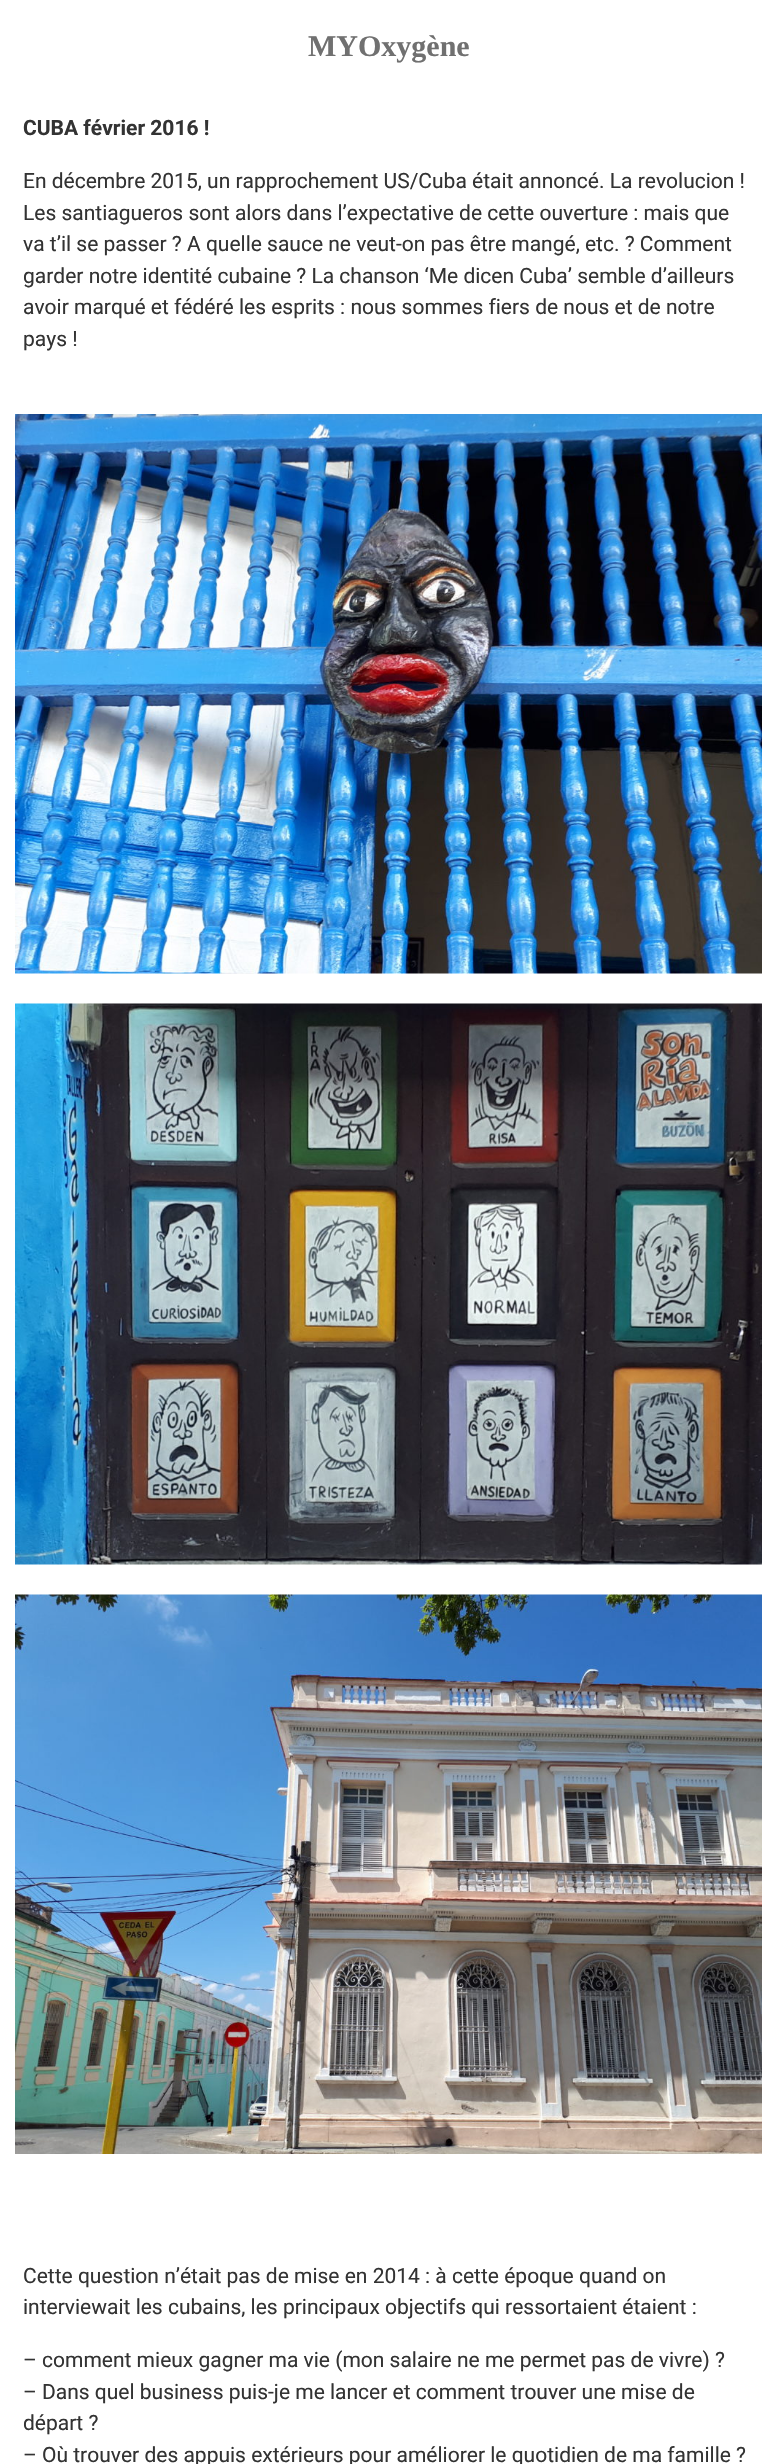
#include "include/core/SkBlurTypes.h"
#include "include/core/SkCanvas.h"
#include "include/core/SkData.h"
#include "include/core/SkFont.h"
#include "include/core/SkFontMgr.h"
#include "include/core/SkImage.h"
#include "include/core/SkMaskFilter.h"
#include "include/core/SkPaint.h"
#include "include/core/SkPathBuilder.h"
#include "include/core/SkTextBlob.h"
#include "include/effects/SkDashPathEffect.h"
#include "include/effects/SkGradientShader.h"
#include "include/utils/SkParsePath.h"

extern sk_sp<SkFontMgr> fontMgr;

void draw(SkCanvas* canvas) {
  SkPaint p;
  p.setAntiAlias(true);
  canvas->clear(SK_ColorWHITE);
  canvas->drawImageRect(SkImages::DeferredFromEncodedData(SkData::MakeFromFileName("images/1.png")), SkRect::MakeLTRB(15, 414, 762, 974), SkSamplingOptions());
  canvas->drawImageRect(SkImages::DeferredFromEncodedData(SkData::MakeFromFileName("images/2.png")), SkRect::MakeLTRB(15, 1003, 762, 1565), SkSamplingOptions());
  canvas->drawImageRect(SkImages::DeferredFromEncodedData(SkData::MakeFromFileName("images/3.png")), SkRect::MakeLTRB(15, 1594, 762, 2154), SkSamplingOptions());
  SkFont font1(fontMgr->matchFamilyStyle("Liberation Serif", SkFontStyle::Bold()), 30);
  font1.setSubpixel(true);
  p.setColor(SkColorSetRGB(112, 112, 112));
  canvas->drawString("MYOxygène", 308, 56, font1, p);
  SkFont font2(fontMgr->matchFamilyStyle("Roboto", SkFontStyle::Bold()), 21);
  font2.setSubpixel(true);
  p.setColor(SkColorSetRGB(51, 51, 51));
  canvas->drawString("CUBA février 2016 !", 23, 135, font2, p);
  SkFont font3(fontMgr->matchFamilyStyle("Roboto", SkFontStyle::Normal()), 21);
  font3.setSubpixel(true);
  canvas->drawString("En décembre 2015, un rapprochement US/Cuba était annoncé. La revolucion !", 23, 188, font3, p);
  canvas->drawString("Les santiagueros sont alors dans l’expectative de cette ouverture : mais que", 23, 220, font3, p);
  canvas->drawString("va t’il se passer ? A quelle sauce ne veut-on pas être mangé, etc. ? Comment", 23, 251, font3, p);
  canvas->drawString("garder notre identité cubaine ? La chanson ‘Me dicen Cuba’ semble d’ailleurs", 23, 283, font3, p);
  canvas->drawString("avoir marqué et fédéré les esprits : nous sommes fiers de nous et de notre", 23, 314, font3, p);
  canvas->drawString("pays !", 23, 346, font3, p);
  canvas->drawString("Cette question n’était pas de mise en 2014 : à cette époque quand on", 23, 2283, font3, p);
  canvas->drawString("interviewait les cubains, les principaux objectifs qui ressortaient étaient :", 23, 2314, font3, p);
  canvas->drawString("– comment mieux gagner ma vie (mon salaire ne me permet pas de vivre) ?", 23, 2367, font3, p);
  canvas->drawString("– Dans quel business puis-je me lancer et comment trouver une mise de", 23, 2399, font3, p);
  canvas->drawString("départ ?", 23, 2430, font3, p);
  canvas->drawString("– Où trouver des appuis extérieurs pour améliorer le quotidien de ma famille ?", 23, 2462, font3, p);
}
